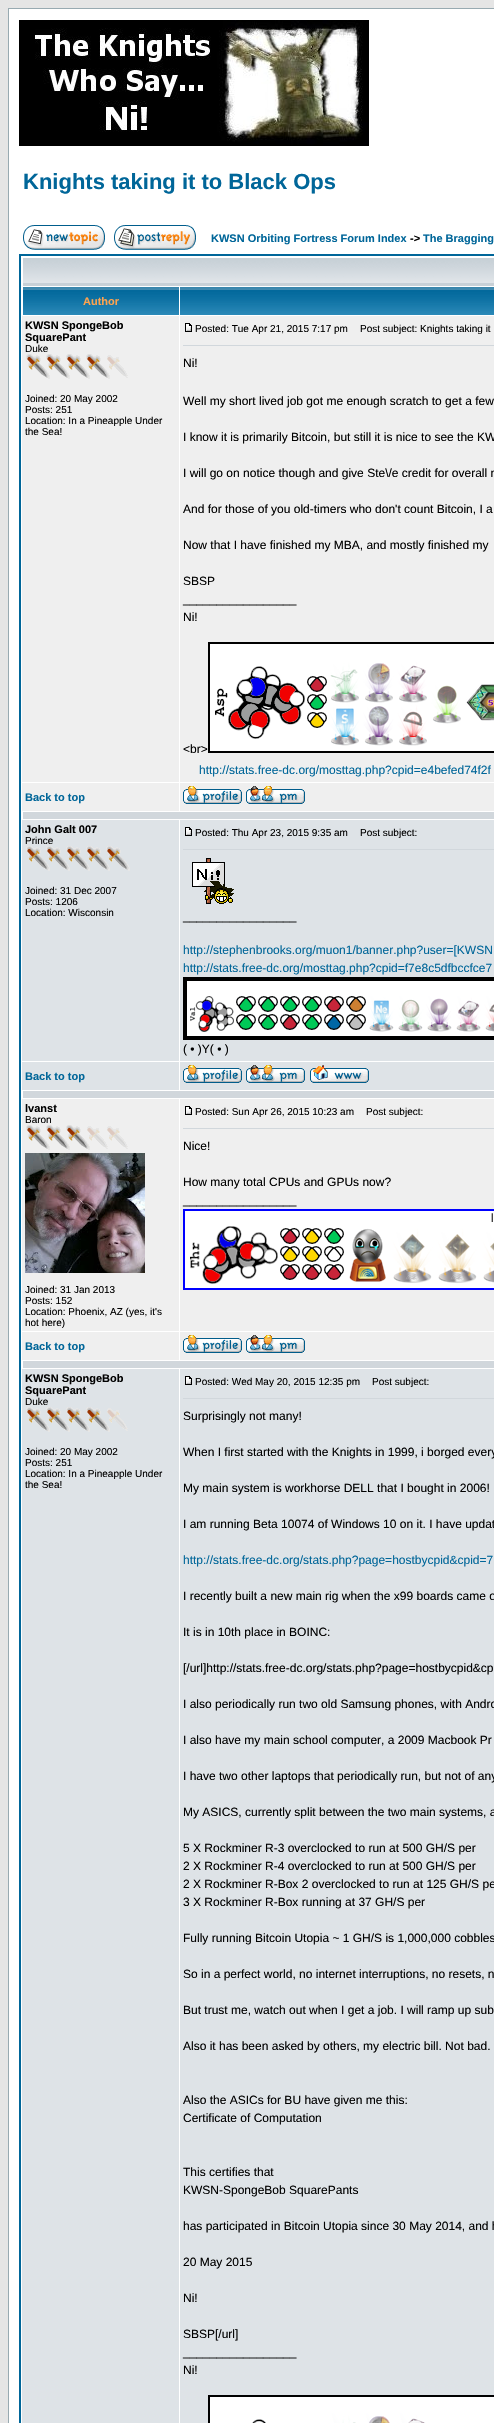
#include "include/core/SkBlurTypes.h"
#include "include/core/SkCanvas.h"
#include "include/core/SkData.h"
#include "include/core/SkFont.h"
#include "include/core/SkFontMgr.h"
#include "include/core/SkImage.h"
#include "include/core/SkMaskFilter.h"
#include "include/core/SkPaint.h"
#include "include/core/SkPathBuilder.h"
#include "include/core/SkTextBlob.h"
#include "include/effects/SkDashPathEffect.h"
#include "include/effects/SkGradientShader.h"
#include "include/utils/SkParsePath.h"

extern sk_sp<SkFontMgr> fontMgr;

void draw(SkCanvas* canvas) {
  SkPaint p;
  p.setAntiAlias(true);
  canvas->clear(SkColorSetRGB(229, 229, 229));
  p.setColor(SK_ColorWHITE);
  canvas->drawRect(SkRect::MakeLTRB(8.5f, 8.5f, 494.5f, 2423.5f), p);
  p.setStyle(SkPaint::kStroke_Style);
  p.setStrokeWidth(1);
  p.setColor(SkColorSetRGB(152, 170, 177));
  canvas->drawRect(SkRect::MakeLTRB(8.5f, 8.5f, 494.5f, 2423.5f), p);
  canvas->drawImageRect(SkImages::DeferredFromEncodedData(SkData::MakeFromFileName("images/1.png")), SkRect::MakeLTRB(19, 20, 369, 146), SkSamplingOptions());
  canvas->drawImageRect(SkImages::DeferredFromEncodedData(SkData::MakeFromFileName("images/2.png")), SkRect::MakeLTRB(23, 225, 105, 250), SkSamplingOptions());
  canvas->drawImageRect(SkImages::DeferredFromEncodedData(SkData::MakeFromFileName("images/3.png")), SkRect::MakeLTRB(114, 225, 196, 250), SkSamplingOptions());
  p.setStrokeWidth(2);
  p.setColor(SkColorSetRGB(0, 102, 153));
  canvas->drawRect(SkRect::MakeLTRB(20, 255, 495, 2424), p);
  canvas->drawImageRect(SkImages::DeferredFromEncodedData(SkData::MakeFromFileName("images/4.png")), SkRect::MakeLTRB(23, 258, 494, 286), SkSamplingOptions());
  canvas->drawImageRect(SkImages::DeferredFromEncodedData(SkData::MakeFromFileName("images/5.png")), SkRect::MakeLTRB(23, 287, 179, 315), SkSamplingOptions());
  canvas->drawImageRect(SkImages::DeferredFromEncodedData(SkData::MakeFromFileName("images/6.png")), SkRect::MakeLTRB(180, 287, 494, 315), SkSamplingOptions());
  p.setStyle(SkPaint::kFill_Style);
  p.setColor(SkColorSetRGB(239, 239, 239));
  canvas->drawRect(SkRect::MakeLTRB(22, 316, 179, 782), p);
  canvas->drawImageRect(SkImages::DeferredFromEncodedData(SkData::MakeFromFileName("images/7.png")), SkRect::MakeLTRB(26, 354, 128, 379), SkSamplingOptions());
  canvas->drawRect(SkRect::MakeLTRB(180, 316, 494, 782), p);
  canvas->drawImageRect(SkImages::DeferredFromEncodedData(SkData::MakeFromFileName("images/8.png")), SkRect::MakeLTRB(185, 323, 192, 332), SkSamplingOptions());
  p.setColor(SkColorSetRGB(209, 215, 220));
  canvas->drawRect(SkRect::MakeLTRB(183, 345, 494, 346), p);
  canvas->drawImageRect(SkImages::DeferredFromEncodedData(SkData::MakeFromFileName("images/9.png")), SkRect::MakeLTRB(208, 642, 494, 753), SkSamplingOptions());
  p.setColor(SkColorSetRGB(239, 239, 239));
  canvas->drawRect(SkRect::MakeLTRB(22, 783, 179, 811), p);
  canvas->drawRect(SkRect::MakeLTRB(180, 783, 494, 811), p);
  canvas->drawImageRect(SkImages::DeferredFromEncodedData(SkData::MakeFromFileName("images/10.png")), SkRect::MakeLTRB(183, 786, 242, 804), SkSamplingOptions());
  canvas->drawImageRect(SkImages::DeferredFromEncodedData(SkData::MakeFromFileName("images/11.png")), SkRect::MakeLTRB(246, 786, 305, 804), SkSamplingOptions());
  p.setColor(SkColorSetRGB(209, 215, 220));
  canvas->drawRect(SkRect::MakeLTRB(23, 812, 494, 819), p);
  p.setColor(SkColorSetRGB(222, 227, 231));
  canvas->drawRect(SkRect::MakeLTRB(22, 820, 179, 1061), p);
  canvas->drawImageRect(SkImages::DeferredFromEncodedData(SkData::MakeFromFileName("images/12.png")), SkRect::MakeLTRB(26, 846, 130, 871), SkSamplingOptions());
  canvas->drawRect(SkRect::MakeLTRB(180, 820, 494, 1061), p);
  canvas->drawImageRect(SkImages::DeferredFromEncodedData(SkData::MakeFromFileName("images/13.png")), SkRect::MakeLTRB(185, 827, 192, 836), SkSamplingOptions());
  p.setColor(SkColorSetRGB(209, 215, 220));
  canvas->drawRect(SkRect::MakeLTRB(183, 849, 494, 850), p);
  canvas->drawImageRect(SkImages::DeferredFromEncodedData(SkData::MakeFromFileName("images/14.png")), SkRect::MakeLTRB(192, 858, 234, 904), SkSamplingOptions());
  canvas->drawImageRect(SkImages::DeferredFromEncodedData(SkData::MakeFromFileName("images/15.png")), SkRect::MakeLTRB(183, 977, 494, 1040), SkSamplingOptions());
  p.setColor(SkColorSetRGB(222, 227, 231));
  canvas->drawRect(SkRect::MakeLTRB(22, 1062, 179, 1090), p);
  canvas->drawRect(SkRect::MakeLTRB(180, 1062, 494, 1090), p);
  canvas->drawImageRect(SkImages::DeferredFromEncodedData(SkData::MakeFromFileName("images/16.png")), SkRect::MakeLTRB(183, 1065, 242, 1083), SkSamplingOptions());
  canvas->drawImageRect(SkImages::DeferredFromEncodedData(SkData::MakeFromFileName("images/17.png")), SkRect::MakeLTRB(246, 1065, 305, 1083), SkSamplingOptions());
  canvas->drawImageRect(SkImages::DeferredFromEncodedData(SkData::MakeFromFileName("images/18.png")), SkRect::MakeLTRB(310, 1065, 369, 1083), SkSamplingOptions());
  p.setColor(SkColorSetRGB(209, 215, 220));
  canvas->drawRect(SkRect::MakeLTRB(23, 1091, 494, 1098), p);
  p.setColor(SkColorSetRGB(239, 239, 239));
  canvas->drawRect(SkRect::MakeLTRB(22, 1099, 179, 1331), p);
  canvas->drawImageRect(SkImages::DeferredFromEncodedData(SkData::MakeFromFileName("images/19.png")), SkRect::MakeLTRB(26, 1125, 128, 1150), SkSamplingOptions());
  canvas->drawImageRect(SkImages::DeferredFromEncodedData(SkData::MakeFromFileName("images/20.png")), SkRect::MakeLTRB(25, 1153, 145, 1273), SkSamplingOptions());
  canvas->drawRect(SkRect::MakeLTRB(180, 1099, 494, 1331), p);
  canvas->drawImageRect(SkImages::DeferredFromEncodedData(SkData::MakeFromFileName("images/8.png")), SkRect::MakeLTRB(185, 1106, 192, 1115), SkSamplingOptions());
  p.setColor(SkColorSetRGB(209, 215, 220));
  canvas->drawRect(SkRect::MakeLTRB(183, 1128, 494, 1129), p);
  canvas->drawImageRect(SkImages::DeferredFromEncodedData(SkData::MakeFromFileName("images/21.png")), SkRect::MakeLTRB(183, 1209, 494, 1290), SkSamplingOptions());
  p.setColor(SkColorSetRGB(239, 239, 239));
  canvas->drawRect(SkRect::MakeLTRB(22, 1332, 179, 1360), p);
  canvas->drawRect(SkRect::MakeLTRB(180, 1332, 494, 1360), p);
  canvas->drawImageRect(SkImages::DeferredFromEncodedData(SkData::MakeFromFileName("images/10.png")), SkRect::MakeLTRB(183, 1335, 242, 1353), SkSamplingOptions());
  canvas->drawImageRect(SkImages::DeferredFromEncodedData(SkData::MakeFromFileName("images/11.png")), SkRect::MakeLTRB(246, 1335, 305, 1353), SkSamplingOptions());
  p.setColor(SkColorSetRGB(209, 215, 220));
  canvas->drawRect(SkRect::MakeLTRB(23, 1361, 494, 1368), p);
  p.setColor(SkColorSetRGB(222, 227, 231));
  canvas->drawRect(SkRect::MakeLTRB(22, 1369, 179, 2423), p);
  canvas->drawImageRect(SkImages::DeferredFromEncodedData(SkData::MakeFromFileName("images/22.png")), SkRect::MakeLTRB(26, 1407, 128, 1432), SkSamplingOptions());
  canvas->drawRect(SkRect::MakeLTRB(180, 1369, 494, 2423), p);
  canvas->drawImageRect(SkImages::DeferredFromEncodedData(SkData::MakeFromFileName("images/13.png")), SkRect::MakeLTRB(185, 1376, 192, 1385), SkSamplingOptions());
  p.setColor(SkColorSetRGB(209, 215, 220));
  canvas->drawRect(SkRect::MakeLTRB(183, 1398, 494, 1399), p);
  canvas->drawImageRect(SkImages::DeferredFromEncodedData(SkData::MakeFromFileName("images/23.png")), SkRect::MakeLTRB(208, 2395, 494, 2423), SkSamplingOptions());
  SkFont font1(fontMgr->matchFamilyStyle("Liberation Sans", SkFontStyle::Bold()), 22);
  font1.setSubpixel(true);
  p.setColor(SkColorSetRGB(0, 102, 153));
  canvas->drawString("Knights taking it to Black Ops", 23, 189, font1, p);
  SkFont font2(fontMgr->matchFamilyStyle("Liberation Sans", SkFontStyle::Bold()), 11);
  font2.setSubpixel(true);
  canvas->drawString("KWSN Orbiting Fortress Forum Index", 211, 242, font2, p);
  p.setColor(SK_ColorBLACK);
  canvas->drawString("->", 410, 242, font2, p);
  p.setColor(SkColorSetRGB(0, 102, 153));
  canvas->drawString("The Bragging", 423, 242, font2, p);
  p.setColor(SkColorSetRGB(255, 163, 79));
  canvas->drawString("Author", 83, 305, font2, p);
  p.setColor(SK_ColorBLACK);
  canvas->drawString("KWSN SpongeBob", 25, 329, font2, p);
  canvas->drawString("SquarePant", 25, 341, font2, p);
  SkFont font3(fontMgr->matchFamilyStyle("Liberation Sans", SkFontStyle::Normal()), 10);
  font3.setSubpixel(true);
  canvas->drawString("Duke", 25, 352, font3, p);
  canvas->drawString("Joined: 20 May 2002", 25, 402, font3, p);
  canvas->drawString("Posts: 251", 25, 413, font3, p);
  canvas->drawString("Location: In a Pineapple Under", 25, 424, font3, p);
  canvas->drawString("the Sea!", 25, 435, font3, p);
  canvas->drawString("Posted: Tue Apr 21, 2015 7:17 pm", 195, 332, font3, p);
  canvas->drawString("Post subject: Knights taking it", 360, 332, font3, p);
  SkFont font4(fontMgr->matchFamilyStyle("Liberation Sans", SkFontStyle::Normal()), 12);
  font4.setSubpixel(true);
  canvas->drawString("Ni!", 183, 367, font4, p);
  canvas->drawString("Well my short lived job got me enough scratch to get a few", 183, 405, font4, p);
  canvas->drawString("I know it is primarily Bitcoin, but still it is nice to see the KW", 183, 441, font4, p);
  canvas->drawString("I will go on notice though and give Ste\\/e credit for overall n", 183, 477, font4, p);
  canvas->drawString("And for those of you old-timers who don't count Bitcoin, I a", 183, 513, font4, p);
  canvas->drawString("Now that I have finished my MBA, and mostly finished my", 183, 549, font4, p);
  canvas->drawString("SBSP", 183, 585, font4, p);
  canvas->drawString("_________________", 183, 603, font4, p);
  canvas->drawString("Ni!", 183, 621, font4, p);
  canvas->drawString("<br>", 183, 753, font4, p);
  p.setColor(SkColorSetRGB(0, 102, 153));
  canvas->drawString("http://stats.free-dc.org/mosttag.php?cpid=e4befed74f2f", 199, 774, font4, p);
  canvas->drawString("Back to top", 25, 801, font2, p);
  p.setColor(SK_ColorBLACK);
  canvas->drawString("John Galt 007", 25, 833, font2, p);
  canvas->drawString("Prince", 25, 844, font3, p);
  canvas->drawString("Joined: 31 Dec 2007", 25, 894, font3, p);
  canvas->drawString("Posts: 1206", 25, 905, font3, p);
  canvas->drawString("Location: Wisconsin", 25, 916, font3, p);
  canvas->drawString("Posted: Thu Apr 23, 2015 9:35 am", 195, 836, font3, p);
  canvas->drawString("Post subject:", 360, 836, font3, p);
  canvas->drawString("_________________", 183, 920, font4, p);
  p.setColor(SkColorSetRGB(0, 102, 153));
  canvas->drawString("http://stephenbrooks.org/muon1/banner.php?user=[KWSN", 183, 954, font4, p);
  canvas->drawString("http://stats.free-dc.org/mosttag.php?cpid=f7e8c5dfbccfce7", 183, 972, font4, p);
  p.setColor(SK_ColorBLACK);
  canvas->drawString("( • )Y( • )", 183, 1053, font4, p);
  p.setColor(SkColorSetRGB(0, 102, 153));
  canvas->drawString("Back to top", 25, 1080, font2, p);
  p.setColor(SK_ColorBLACK);
  canvas->drawString("lvanst", 25, 1112, font2, p);
  canvas->drawString("Baron", 25, 1123, font3, p);
  canvas->drawString("Joined: 31 Jan 2013", 25, 1293, font3, p);
  canvas->drawString("Posts: 152", 25, 1304, font3, p);
  canvas->drawString("Location: Phoenix, AZ (yes, it's", 25, 1315, font3, p);
  canvas->drawString("hot here)", 25, 1326, font3, p);
  canvas->drawString("Posted: Sun Apr 26, 2015 10:23 am", 195, 1115, font3, p);
  canvas->drawString("Post subject:", 366, 1115, font3, p);
  canvas->drawString("Nice!", 183, 1150, font4, p);
  canvas->drawString("How many total CPUs and GPUs now?", 183, 1186, font4, p);
  canvas->drawString("_________________", 183, 1204, font4, p);
  p.setColor(SkColorSetRGB(0, 102, 153));
  canvas->drawString("Back to top", 25, 1350, font2, p);
  p.setColor(SK_ColorBLACK);
  canvas->drawString("KWSN SpongeBob", 25, 1382, font2, p);
  canvas->drawString("SquarePant", 25, 1394, font2, p);
  canvas->drawString("Duke", 25, 1405, font3, p);
  canvas->drawString("Joined: 20 May 2002", 25, 1455, font3, p);
  canvas->drawString("Posts: 251", 25, 1466, font3, p);
  canvas->drawString("Location: In a Pineapple Under", 25, 1477, font3, p);
  canvas->drawString("the Sea!", 25, 1488, font3, p);
  canvas->drawString("Posted: Wed May 20, 2015 12:35 pm", 195, 1385, font3, p);
  canvas->drawString("Post subject:", 372, 1385, font3, p);
  canvas->drawString("Surprisingly not many!", 183, 1420, font4, p);
  canvas->drawString("When I first started with the Knights in 1999, i borged every", 183, 1456, font4, p);
  canvas->drawString("My main system is workhorse DELL that I bought in 2006!", 183, 1492, font4, p);
  canvas->drawString("I am running Beta 10074 of Windows 10 on it. I have updat", 183, 1528, font4, p);
  p.setColor(SkColorSetRGB(0, 102, 153));
  canvas->drawString("http://stats.free-dc.org/stats.php?page=hostbycpid&cpid=7", 183, 1564, font4, p);
  p.setColor(SK_ColorBLACK);
  canvas->drawString("I recently built a new main rig when the x99 boards came o", 183, 1600, font4, p);
  canvas->drawString("It is in 10th place in BOINC:", 183, 1636, font4, p);
  canvas->drawString("[/url]http://stats.free-dc.org/stats.php?page=hostbycpid&cp", 183, 1672, font4, p);
  canvas->drawString("I also periodically run two old Samsung phones, with Andro", 183, 1708, font4, p);
  canvas->drawString("I also have my main school computer, a 2009 Macbook Pr", 183, 1744, font4, p);
  canvas->drawString("I have two other laptops that periodically run, but not of any", 183, 1780, font4, p);
  canvas->drawString("My ASICS, currently split between the two main systems, a", 183, 1816, font4, p);
  canvas->drawString("5 X Rockminer R-3 overclocked to run at 500 GH/S per", 183, 1852, font4, p);
  canvas->drawString("2 X Rockminer R-4 overclocked to run at 500 GH/S per", 183, 1870, font4, p);
  canvas->drawString("2 X Rockminer R-Box 2 overclocked to run at 125 GH/S pe", 183, 1888, font4, p);
  canvas->drawString("3 X Rockminer R-Box running at 37 GH/S per", 183, 1906, font4, p);
  canvas->drawString("Fully running Bitcoin Utopia ~ 1 GH/S is 1,000,000 cobbles", 183, 1942, font4, p);
  canvas->drawString("So in a perfect world, no internet interruptions, no resets, n", 183, 1978, font4, p);
  canvas->drawString("But trust me, watch out when I get a job. I will ramp up sub", 183, 2014, font4, p);
  canvas->drawString("Also it has been asked by others, my electric bill. Not bad.", 183, 2050, font4, p);
  canvas->drawString("Also the ASICs for BU have given me this:", 183, 2104, font4, p);
  canvas->drawString("Certificate of Computation", 183, 2122, font4, p);
  canvas->drawString("This certifies that", 183, 2176, font4, p);
  canvas->drawString("KWSN-SpongeBob SquarePants", 183, 2194, font4, p);
  canvas->drawString("has participated in Bitcoin Utopia since 30 May 2014, and h", 183, 2230, font4, p);
  canvas->drawString("20 May 2015", 183, 2266, font4, p);
  canvas->drawString("Ni!", 183, 2302, font4, p);
  canvas->drawString("SBSP[/url]", 183, 2338, font4, p);
  canvas->drawString("_________________", 183, 2356, font4, p);
  canvas->drawString("Ni!", 183, 2374, font4, p);
}
